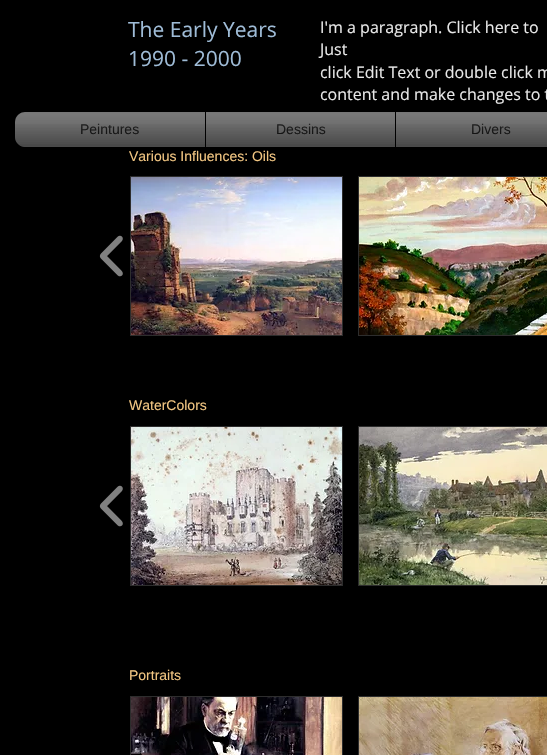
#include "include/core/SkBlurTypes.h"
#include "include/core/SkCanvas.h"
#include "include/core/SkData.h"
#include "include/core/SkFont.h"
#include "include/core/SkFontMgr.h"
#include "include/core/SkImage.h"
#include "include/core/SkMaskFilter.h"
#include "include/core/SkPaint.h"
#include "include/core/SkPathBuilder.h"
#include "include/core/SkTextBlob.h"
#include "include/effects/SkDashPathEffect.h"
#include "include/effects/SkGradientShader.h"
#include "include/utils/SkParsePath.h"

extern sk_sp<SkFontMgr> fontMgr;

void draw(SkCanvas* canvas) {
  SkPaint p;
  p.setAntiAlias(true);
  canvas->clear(SK_ColorBLACK);
  canvas->drawImageRect(SkImages::DeferredFromEncodedData(SkData::MakeFromFileName("images/1.png")), SkRect::MakeLTRB(99, 235, 123, 277), SkSamplingOptions());
  p.setColor(SkColorSetRGB(45, 45, 45));
  canvas->drawRect(SkRect::MakeLTRB(130, 176, 343, 336), p);
  canvas->drawImageRect(SkImages::DeferredFromEncodedData(SkData::MakeFromFileName("images/2.png")), SkRect::MakeLTRB(131, 177, 342, 335), SkSamplingOptions());
  canvas->drawRect(SkRect::MakeLTRB(358, 176, 547, 336), p);
  canvas->drawImageRect(SkImages::DeferredFromEncodedData(SkData::MakeFromFileName("images/3.png")), SkRect::MakeLTRB(359, 177, 547, 335), SkSamplingOptions());
  canvas->drawImageRect(SkImages::DeferredFromEncodedData(SkData::MakeFromFileName("images/1.png")), SkRect::MakeLTRB(99, 485, 123, 527), SkSamplingOptions());
  canvas->drawRect(SkRect::MakeLTRB(130, 426, 343, 586), p);
  canvas->drawImageRect(SkImages::DeferredFromEncodedData(SkData::MakeFromFileName("images/4.png")), SkRect::MakeLTRB(131, 427, 342, 585), SkSamplingOptions());
  canvas->drawRect(SkRect::MakeLTRB(358, 426, 547, 586), p);
  canvas->drawImageRect(SkImages::DeferredFromEncodedData(SkData::MakeFromFileName("images/5.png")), SkRect::MakeLTRB(359, 427, 547, 585), SkSamplingOptions());
  canvas->drawRect(SkRect::MakeLTRB(130, 696, 343, 755), p);
  canvas->drawImageRect(SkImages::DeferredFromEncodedData(SkData::MakeFromFileName("images/6.png")), SkRect::MakeLTRB(131, 697, 342, 755), SkSamplingOptions());
  canvas->drawRect(SkRect::MakeLTRB(358, 696, 547, 755), p);
  canvas->drawImageRect(SkImages::DeferredFromEncodedData(SkData::MakeFromFileName("images/7.png")), SkRect::MakeLTRB(359, 697, 547, 755), SkSamplingOptions());
  canvas->drawImageRect(SkImages::DeferredFromEncodedData(SkData::MakeFromFileName("images/8.png")), SkRect::MakeLTRB(15, 112, 25, 142), SkSamplingOptions());
  canvas->drawImageRect(SkImages::DeferredFromEncodedData(SkData::MakeFromFileName("images/9.png")), SkRect::MakeLTRB(15, 137, 25, 147), SkSamplingOptions());
  p.setColor(SkColorSetRGB(87, 87, 87));
  canvas->drawPath(SkPathBuilder().moveTo(25, 112).lineTo(205, 112).lineTo(205, 147).lineTo(25, 147).cubicTo(19.5f, 147, 15, 142.5f, 15, 137).lineTo(15, 122).cubicTo(15, 116.5f, 19.5f, 112, 25, 112).close().detach(), p);
  canvas->drawRect(SkRect::MakeLTRB(206, 112, 395, 147), p);
  canvas->drawRect(SkRect::MakeLTRB(396, 112, 547, 147), p);
  SkFont font1(fontMgr->matchFamilyStyle("Open Sans", SkFontStyle::Normal()), 21);
  font1.setSubpixel(true);
  p.setColor(SkColorSetRGB(159, 188, 215));
  canvas->drawString("The Early Years", 128, 37, font1, p);
  canvas->drawString("1990 - 2000", 128, 66, font1, p);
  SkFont font2(fontMgr->matchFamilyStyle("Open Sans", SkFontStyle::Normal()), 16);
  font2.setSubpixel(true);
  p.setColor(SkColorSetRGB(232, 232, 232));
  canvas->drawString("I'm a paragraph. Click here to", 320, 33, font2, p);
  canvas->drawString("Just", 320, 55, font2, p);
  canvas->drawString("click Edit Text or double click m", 320, 78, font2, p);
  canvas->drawString("content and make changes to t", 320, 100, font2, p);
  SkFont font3(fontMgr->matchFamilyStyle("Liberation Sans", SkFontStyle::Normal()), 14);
  font3.setSubpixel(true);
  p.setColor(SkColorSetRGB(242, 198, 130));
  canvas->drawString("Various Influences: Oils", 129, 161, font3, p);
  canvas->drawString("WaterColors", 129, 410, font3, p);
  canvas->drawString("Portraits", 129, 680, font3, p);
  p.setColor(SK_ColorBLACK);
  canvas->drawString("Peintures", 80, 134, font3, p);
  canvas->drawImageRect(SkImages::DeferredFromEncodedData(SkData::MakeFromFileName("images/10.png")), SkRect::MakeLTRB(15, 112, 205, 144), SkSamplingOptions());
  canvas->drawImageRect(SkImages::DeferredFromEncodedData(SkData::MakeFromFileName("images/11.png")), SkRect::MakeLTRB(15, 124, 205, 147), SkSamplingOptions());
  canvas->drawString("Dessins", 276, 134, font3, p);
  canvas->drawImageRect(SkImages::DeferredFromEncodedData(SkData::MakeFromFileName("images/12.png")), SkRect::MakeLTRB(206, 112, 395, 144), SkSamplingOptions());
  canvas->drawImageRect(SkImages::DeferredFromEncodedData(SkData::MakeFromFileName("images/13.png")), SkRect::MakeLTRB(206, 124, 395, 147), SkSamplingOptions());
  canvas->drawString("Divers", 471, 134, font3, p);
  canvas->drawImageRect(SkImages::DeferredFromEncodedData(SkData::MakeFromFileName("images/14.png")), SkRect::MakeLTRB(396, 112, 547, 144), SkSamplingOptions());
  canvas->drawImageRect(SkImages::DeferredFromEncodedData(SkData::MakeFromFileName("images/15.png")), SkRect::MakeLTRB(396, 124, 547, 147), SkSamplingOptions());
}
